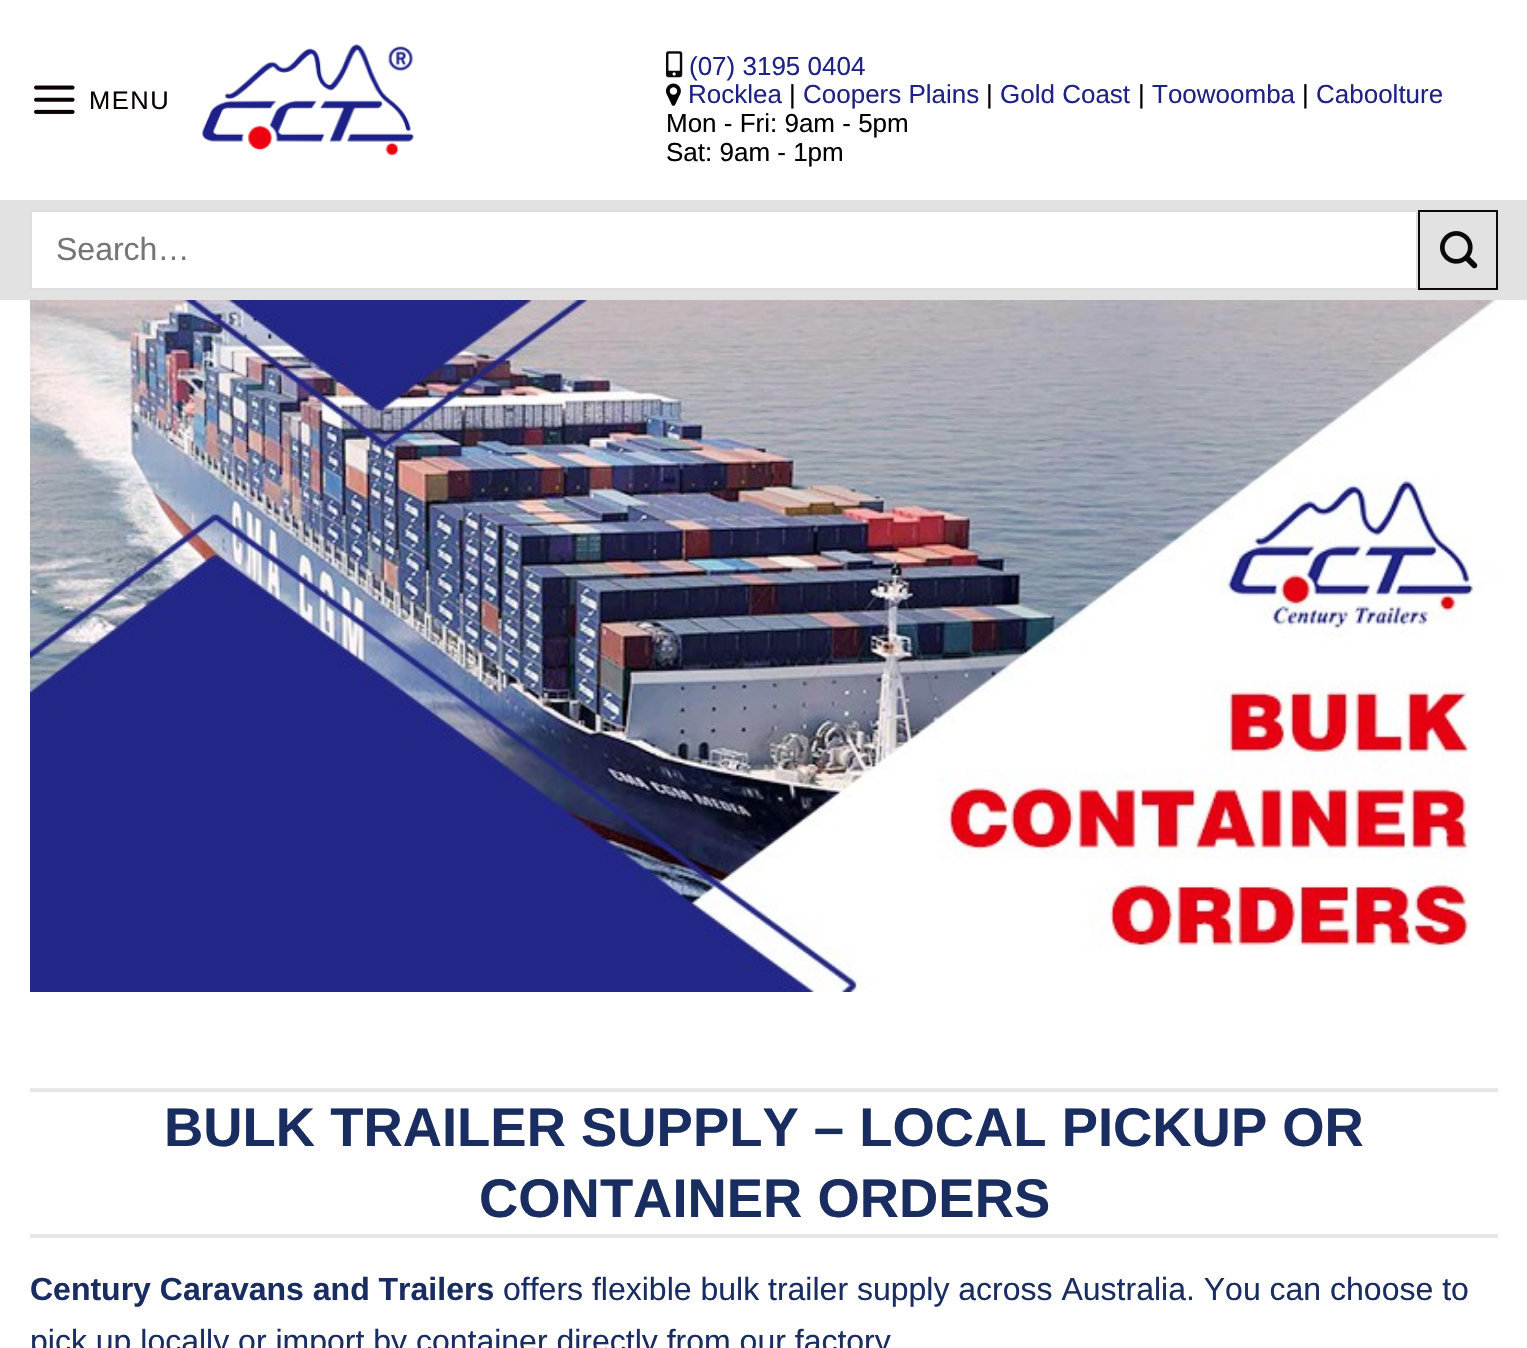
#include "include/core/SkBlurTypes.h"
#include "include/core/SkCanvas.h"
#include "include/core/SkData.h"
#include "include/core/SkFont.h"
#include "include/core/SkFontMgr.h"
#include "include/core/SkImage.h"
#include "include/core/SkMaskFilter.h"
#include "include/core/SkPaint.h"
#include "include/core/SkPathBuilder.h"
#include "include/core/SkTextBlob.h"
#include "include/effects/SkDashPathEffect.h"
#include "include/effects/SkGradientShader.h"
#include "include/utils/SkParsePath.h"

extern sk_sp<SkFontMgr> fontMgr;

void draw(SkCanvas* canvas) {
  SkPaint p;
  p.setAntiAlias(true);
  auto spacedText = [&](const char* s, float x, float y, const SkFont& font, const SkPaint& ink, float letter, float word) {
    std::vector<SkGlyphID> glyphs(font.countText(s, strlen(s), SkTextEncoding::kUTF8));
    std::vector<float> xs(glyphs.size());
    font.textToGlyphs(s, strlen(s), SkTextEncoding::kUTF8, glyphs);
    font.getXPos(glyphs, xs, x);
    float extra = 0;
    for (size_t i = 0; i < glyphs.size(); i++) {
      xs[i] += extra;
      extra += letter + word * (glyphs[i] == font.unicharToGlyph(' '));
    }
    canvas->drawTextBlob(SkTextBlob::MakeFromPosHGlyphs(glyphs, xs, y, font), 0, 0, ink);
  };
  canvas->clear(SK_ColorWHITE);
  canvas->drawImageRect(SkImages::DeferredFromEncodedData(SkData::MakeFromFileName("images/1.png")), SkRect::MakeLTRB(34, 85, 75, 114), SkSamplingOptions());
  canvas->drawImageRect(SkImages::DeferredFromEncodedData(SkData::MakeFromFileName("images/2.png")), SkRect::MakeLTRB(201, 43, 414, 156), SkSamplingOptions());
  canvas->drawImageRect(SkImages::DeferredFromEncodedData(SkData::MakeFromFileName("images/3.png")), SkRect::MakeLTRB(666, 51, 683, 78), SkSamplingOptions());
  canvas->drawImageRect(SkImages::DeferredFromEncodedData(SkData::MakeFromFileName("images/4.png")), SkRect::MakeLTRB(666, 83, 681, 106), SkSamplingOptions());
  p.setColor(SkColorSetRGB(226, 226, 226));
  canvas->drawRect(SkRect::MakeLTRB(0, 200, 1527, 300), p);
  p.setColor(SK_ColorWHITE);
  canvas->drawRect(SkRect::MakeLTRB(31, 211, 1417, 289), p);
  p.setStyle(SkPaint::kStroke_Style);
  p.setStrokeWidth(2);
  p.setColor(SkColorSetRGB(221, 221, 221));
  canvas->drawRect(SkRect::MakeLTRB(31, 211, 1417, 289), p);
  p.setColor(SkColorSetRGB(10, 10, 10));
  canvas->drawRect(SkRect::MakeLTRB(1419, 211, 1497, 289), p);
  canvas->drawImageRect(SkImages::DeferredFromEncodedData(SkData::MakeFromFileName("images/5.png")), SkRect::MakeLTRB(1440, 231, 1478, 269), SkSamplingOptions());
  canvas->drawImageRect(SkImages::DeferredFromEncodedData(SkData::MakeFromFileName("images/6.png")), SkRect::MakeLTRB(30, 300, 1498, 992), SkSamplingOptions());
  p.setStyle(SkPaint::kFill_Style);
  p.setColor(SkColorSetRGB(231, 231, 231));
  canvas->drawRect(SkRect::MakeLTRB(30, 1088, 1498, 1092), p);
  canvas->drawRect(SkRect::MakeLTRB(30, 1234, 1498, 1238), p);
  SkFont font1(fontMgr->matchFamilyStyle("Liberation Sans", SkFontStyle::Normal()), 25.5f);
  font1.setSubpixel(true);
  p.setColor(SkColorSetRGB(10, 1, 1));
  spacedText("MENU", 89, 109, font1, p, 1.5f, 0);
  SkFont font2(fontMgr->matchFamilyStyle("Liberation Sans", SkFontStyle::Normal()), 26);
  font2.setSubpixel(true);
  p.setColor(SkColorSetRGB(30, 34, 133));
  canvas->drawString("(07) 3195 0404", 689, 75, font2, p);
  canvas->drawString("Rocklea", 688, 103, font2, p);
  p.setColor(SK_ColorBLACK);
  canvas->drawString("|", 789, 103, font2, p);
  p.setColor(SkColorSetRGB(30, 34, 133));
  canvas->drawString("Coopers Plains", 803, 103, font2, p);
  p.setColor(SK_ColorBLACK);
  canvas->drawString("|", 986, 103, font2, p);
  p.setColor(SkColorSetRGB(30, 34, 133));
  canvas->drawString("Gold Coast", 1000, 103, font2, p);
  p.setColor(SK_ColorBLACK);
  canvas->drawString("|", 1138, 103, font2, p);
  p.setColor(SkColorSetRGB(30, 34, 133));
  canvas->drawString("Toowoomba", 1152, 103, font2, p);
  p.setColor(SK_ColorBLACK);
  canvas->drawString("|", 1302, 103, font2, p);
  p.setColor(SkColorSetRGB(30, 34, 133));
  canvas->drawString("Caboolture", 1316, 103, font2, p);
  p.setColor(SK_ColorBLACK);
  canvas->drawString("Mon - Fri: 9am - 5pm", 666, 132, font2, p);
  canvas->drawString("Sat: 9am - 1pm", 666, 161, font2, p);
  SkFont font3(fontMgr->matchFamilyStyle("Liberation Sans", SkFontStyle::Normal()), 32);
  font3.setSubpixel(true);
  p.setColor(SkColorSetRGB(117, 117, 117));
  canvas->drawString("Search…", 56, 260, font3, p);
  SkFont font4(fontMgr->matchFamilyStyle("Liberation Sans", SkFontStyle::Bold()), 54.4f);
  font4.setSubpixel(true);
  p.setColor(SkColorSetRGB(25, 45, 97));
  canvas->drawString("BULK TRAILER SUPPLY – LOCAL PICKUP OR", 164, 1146, font4, p);
  canvas->drawString("CONTAINER ORDERS", 479, 1217, font4, p);
  SkFont font5(fontMgr->matchFamilyStyle("Liberation Sans", SkFontStyle::Bold()), 32);
  font5.setSubpixel(true);
  canvas->drawString("Century Caravans and Trailers", 30, 1300, font5, p);
  canvas->drawString("offers flexible bulk trailer supply across Australia. You can choose to", 503, 1300, font3, p);
  canvas->drawString("pick up locally or import by container directly from our factory", 30, 1352, font3, p);
}
